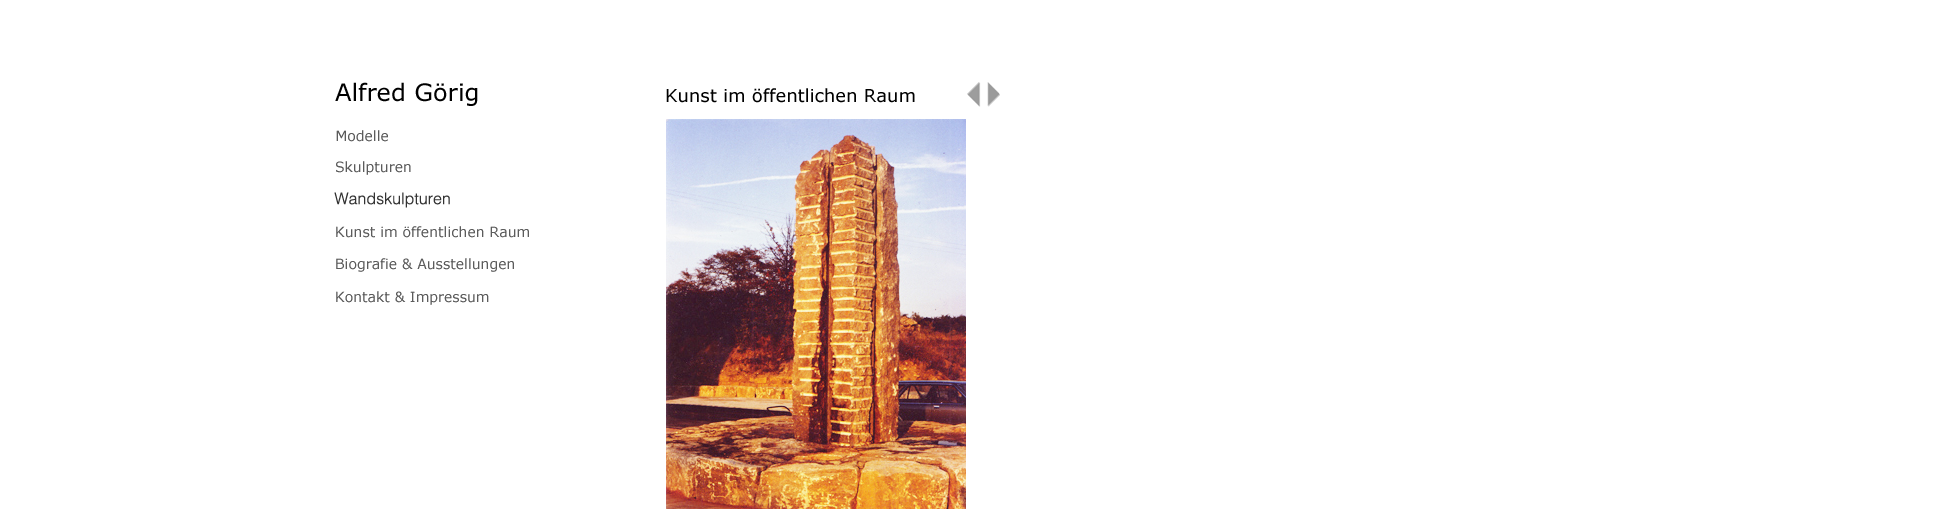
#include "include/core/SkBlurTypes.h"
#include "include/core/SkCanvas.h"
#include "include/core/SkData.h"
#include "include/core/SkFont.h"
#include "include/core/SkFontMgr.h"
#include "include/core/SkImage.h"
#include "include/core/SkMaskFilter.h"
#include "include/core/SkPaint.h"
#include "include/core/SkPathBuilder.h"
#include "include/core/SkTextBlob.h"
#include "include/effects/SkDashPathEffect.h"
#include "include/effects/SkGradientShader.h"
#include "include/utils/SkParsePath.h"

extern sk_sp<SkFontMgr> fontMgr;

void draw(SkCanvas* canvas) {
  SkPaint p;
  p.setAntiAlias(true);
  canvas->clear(SK_ColorWHITE);
  canvas->drawImageRect(SkImages::DeferredFromEncodedData(SkData::MakeFromFileName("images/1.png")), SkRect::MakeLTRB(335, 82, 478, 106), SkSamplingOptions());
  canvas->drawImageRect(SkImages::DeferredFromEncodedData(SkData::MakeFromFileName("images/2.png")), SkRect::MakeLTRB(336, 130, 388, 142), SkSamplingOptions());
  canvas->drawImageRect(SkImages::DeferredFromEncodedData(SkData::MakeFromFileName("images/3.png")), SkRect::MakeLTRB(336, 161, 411, 175), SkSamplingOptions());
  canvas->drawImageRect(SkImages::DeferredFromEncodedData(SkData::MakeFromFileName("images/4.png")), SkRect::MakeLTRB(334, 192, 450, 208), SkSamplingOptions());
  canvas->drawImageRect(SkImages::DeferredFromEncodedData(SkData::MakeFromFileName("images/5.png")), SkRect::MakeLTRB(336, 226, 529, 238), SkSamplingOptions());
  canvas->drawImageRect(SkImages::DeferredFromEncodedData(SkData::MakeFromFileName("images/6.png")), SkRect::MakeLTRB(336, 258, 514, 272), SkSamplingOptions());
  canvas->drawImageRect(SkImages::DeferredFromEncodedData(SkData::MakeFromFileName("images/7.png")), SkRect::MakeLTRB(336, 291, 489, 305), SkSamplingOptions());
  canvas->drawImageRect(SkImages::DeferredFromEncodedData(SkData::MakeFromFileName("images/8.png")), SkRect::MakeLTRB(666, 88, 915, 103), SkSamplingOptions());
  canvas->drawImageRect(SkImages::DeferredFromEncodedData(SkData::MakeFromFileName("images/9.png")), SkRect::MakeLTRB(967, 82, 981, 107), SkSamplingOptions());
  canvas->drawImageRect(SkImages::DeferredFromEncodedData(SkData::MakeFromFileName("images/10.png")), SkRect::MakeLTRB(987, 82, 1000, 107), SkSamplingOptions());
  canvas->drawImageRect(SkImages::DeferredFromEncodedData(SkData::MakeFromFileName("images/11.png")), SkRect::MakeLTRB(666, 119, 966, 509), SkSamplingOptions());
}
